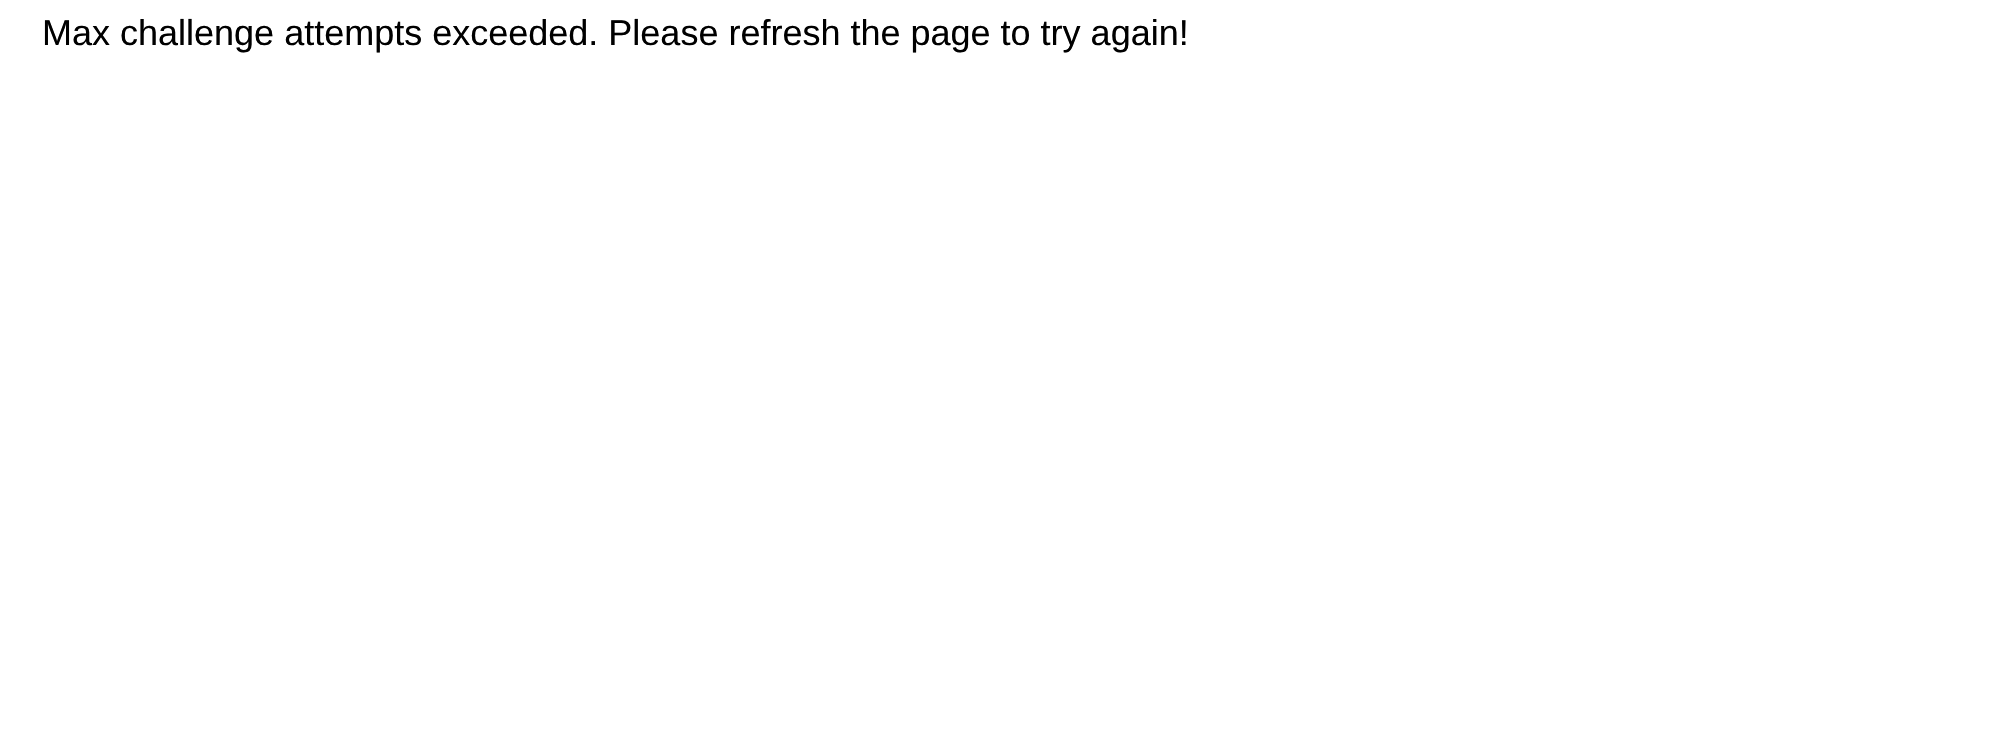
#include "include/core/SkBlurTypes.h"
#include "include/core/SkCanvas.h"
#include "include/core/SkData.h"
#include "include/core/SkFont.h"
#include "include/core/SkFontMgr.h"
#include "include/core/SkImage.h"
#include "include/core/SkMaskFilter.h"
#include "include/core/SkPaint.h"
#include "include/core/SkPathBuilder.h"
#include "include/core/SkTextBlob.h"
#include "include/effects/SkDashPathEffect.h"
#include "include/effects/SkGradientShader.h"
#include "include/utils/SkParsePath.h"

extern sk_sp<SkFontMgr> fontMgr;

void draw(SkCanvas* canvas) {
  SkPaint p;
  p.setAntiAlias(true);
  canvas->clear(SK_ColorWHITE);
  SkFont font1(fontMgr->matchFamilyStyle("Liberation Sans", SkFontStyle::Normal()), 36);
  font1.setSubpixel(true);
  p.setColor(SK_ColorBLACK);
  canvas->drawString("Max challenge attempts exceeded. Please refresh the page to try again!", 42, 45, font1, p);
}
